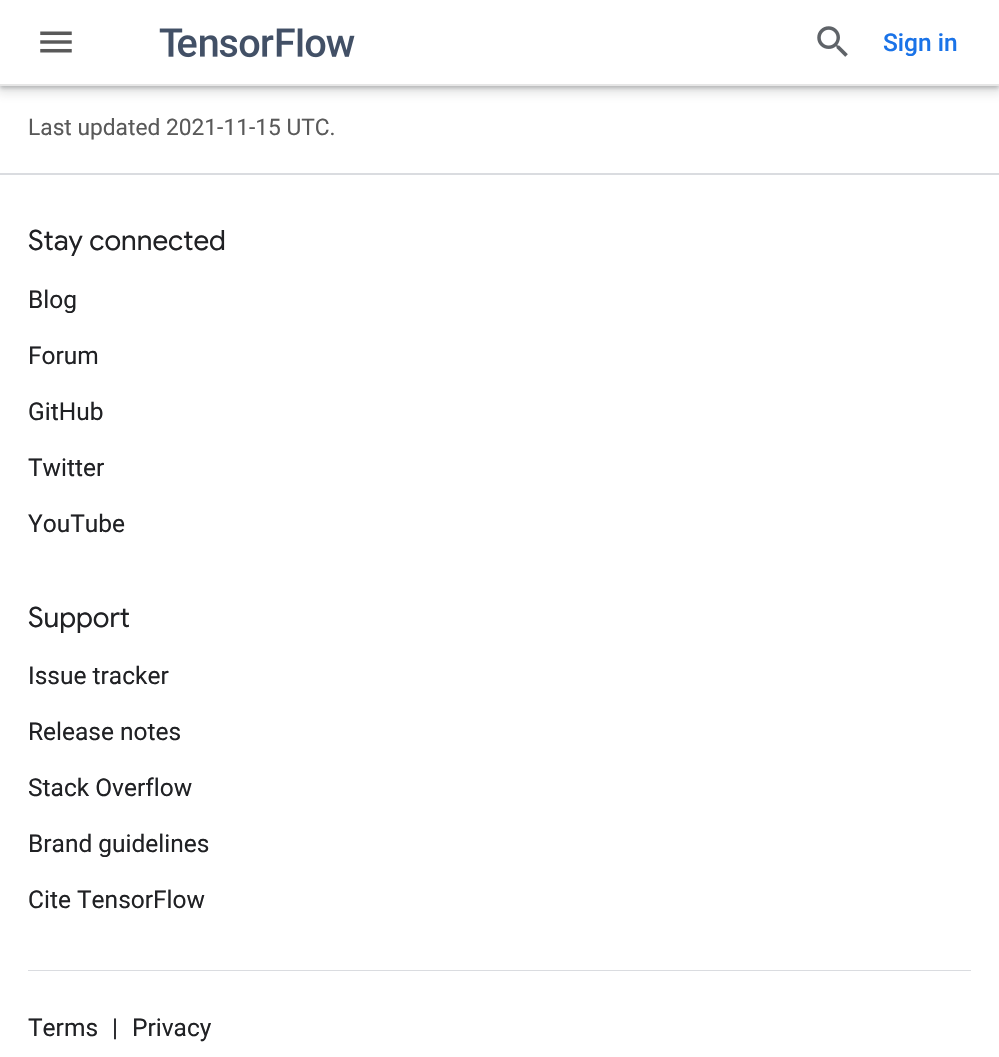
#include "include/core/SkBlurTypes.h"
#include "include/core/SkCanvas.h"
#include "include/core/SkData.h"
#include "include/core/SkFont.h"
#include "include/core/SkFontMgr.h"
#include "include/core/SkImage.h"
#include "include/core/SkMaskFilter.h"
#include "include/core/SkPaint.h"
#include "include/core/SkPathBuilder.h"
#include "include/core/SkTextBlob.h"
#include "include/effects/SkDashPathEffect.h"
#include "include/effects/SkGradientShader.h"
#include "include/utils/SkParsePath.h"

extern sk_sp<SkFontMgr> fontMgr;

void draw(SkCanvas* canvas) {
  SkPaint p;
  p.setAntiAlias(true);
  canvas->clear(SK_ColorWHITE);
  p.setColor(SkColorSetARGB(38, 60, 64, 67));
  p.setMaskFilter(SkMaskFilter::MakeBlur(kNormal_SkBlurStyle, 5));
  canvas->drawRect(SkRect::MakeLTRB(-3, -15, 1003, 93), p);
  p.setMaskFilter(nullptr);
  p.setColor(SkColorSetARGB(77, 60, 64, 67));
  p.setMaskFilter(SkMaskFilter::MakeBlur(kNormal_SkBlurStyle, 2));
  canvas->drawRect(SkRect::MakeLTRB(0, -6, 999, 88), p);
  p.setMaskFilter(nullptr);
  p.setColor(SK_ColorWHITE);
  canvas->drawRect(SkRect::MakeLTRB(0, 0, 999, 84), p);
  p.setColor(SkColorSetRGB(230, 230, 230));
  canvas->drawRect(SkRect::MakeLTRB(0, 84, 999, 86), p);
  canvas->drawImageRect(SkImages::DeferredFromEncodedData(SkData::MakeFromFileName("images/1.png")), SkRect::MakeLTRB(40, 31, 72, 53), SkSamplingOptions());
  canvas->drawImageRect(SkImages::DeferredFromEncodedData(SkData::MakeFromFileName("images/2.png")), SkRect::MakeLTRB(159, 28, 355, 58), SkSamplingOptions());
  canvas->drawImageRect(SkImages::DeferredFromEncodedData(SkData::MakeFromFileName("images/3.png")), SkRect::MakeLTRB(817, 26, 848, 57), SkSamplingOptions());
  p.setColor(SkColorSetRGB(218, 220, 224));
  canvas->drawRect(SkRect::MakeLTRB(0, 173, 999, 175), p);
  canvas->drawRect(SkRect::MakeLTRB(28, 970, 971, 971), p);
  SkFont font1(fontMgr->matchFamilyStyle("Roboto", SkFontStyle(500, SkFontStyle::kNormal_Width, SkFontStyle::kUpright_Slant)), 24.5f);
  font1.setSubpixel(true);
  p.setColor(SkColorSetRGB(26, 115, 232));
  canvas->drawString("Sign in", 883, 51, font1, p);
  SkFont font2(fontMgr->matchFamilyStyle("Roboto", SkFontStyle::Normal()), 22.75f);
  font2.setSubpixel(true);
  p.setColor(SkColorSetRGB(89, 89, 89));
  canvas->drawString("Last updated 2021-11-15 UTC.", 28, 135, font2, p);
  SkFont font3(fontMgr->matchFamilyStyle("Google Sans", SkFontStyle::Normal()), 28);
  font3.setSubpixel(true);
  p.setColor(SkColorSetRGB(32, 33, 36));
  canvas->drawString("Stay connected", 28, 250, font3, p);
  SkFont font4(fontMgr->matchFamilyStyle("Roboto", SkFontStyle::Normal()), 24.5f);
  font4.setSubpixel(true);
  canvas->drawString("Blog", 28, 308, font4, p);
  canvas->drawString("Forum", 28, 364, font4, p);
  canvas->drawString("GitHub", 28, 420, font4, p);
  canvas->drawString("Twitter", 28, 476, font4, p);
  canvas->drawString("YouTube", 28, 532, font4, p);
  canvas->drawString("Support", 28, 627, font3, p);
  canvas->drawString("Issue tracker", 28, 684, font4, p);
  canvas->drawString("Release notes", 28, 740, font4, p);
  canvas->drawString("Stack Overflow", 28, 796, font4, p);
  canvas->drawString("Brand guidelines", 28, 852, font4, p);
  canvas->drawString("Cite TensorFlow", 28, 908, font4, p);
  canvas->drawString("Terms", 28, 1036, font4, p);
  canvas->drawString("|", 112, 1036, font4, p);
  canvas->drawString("Privacy", 132, 1036, font4, p);
}
